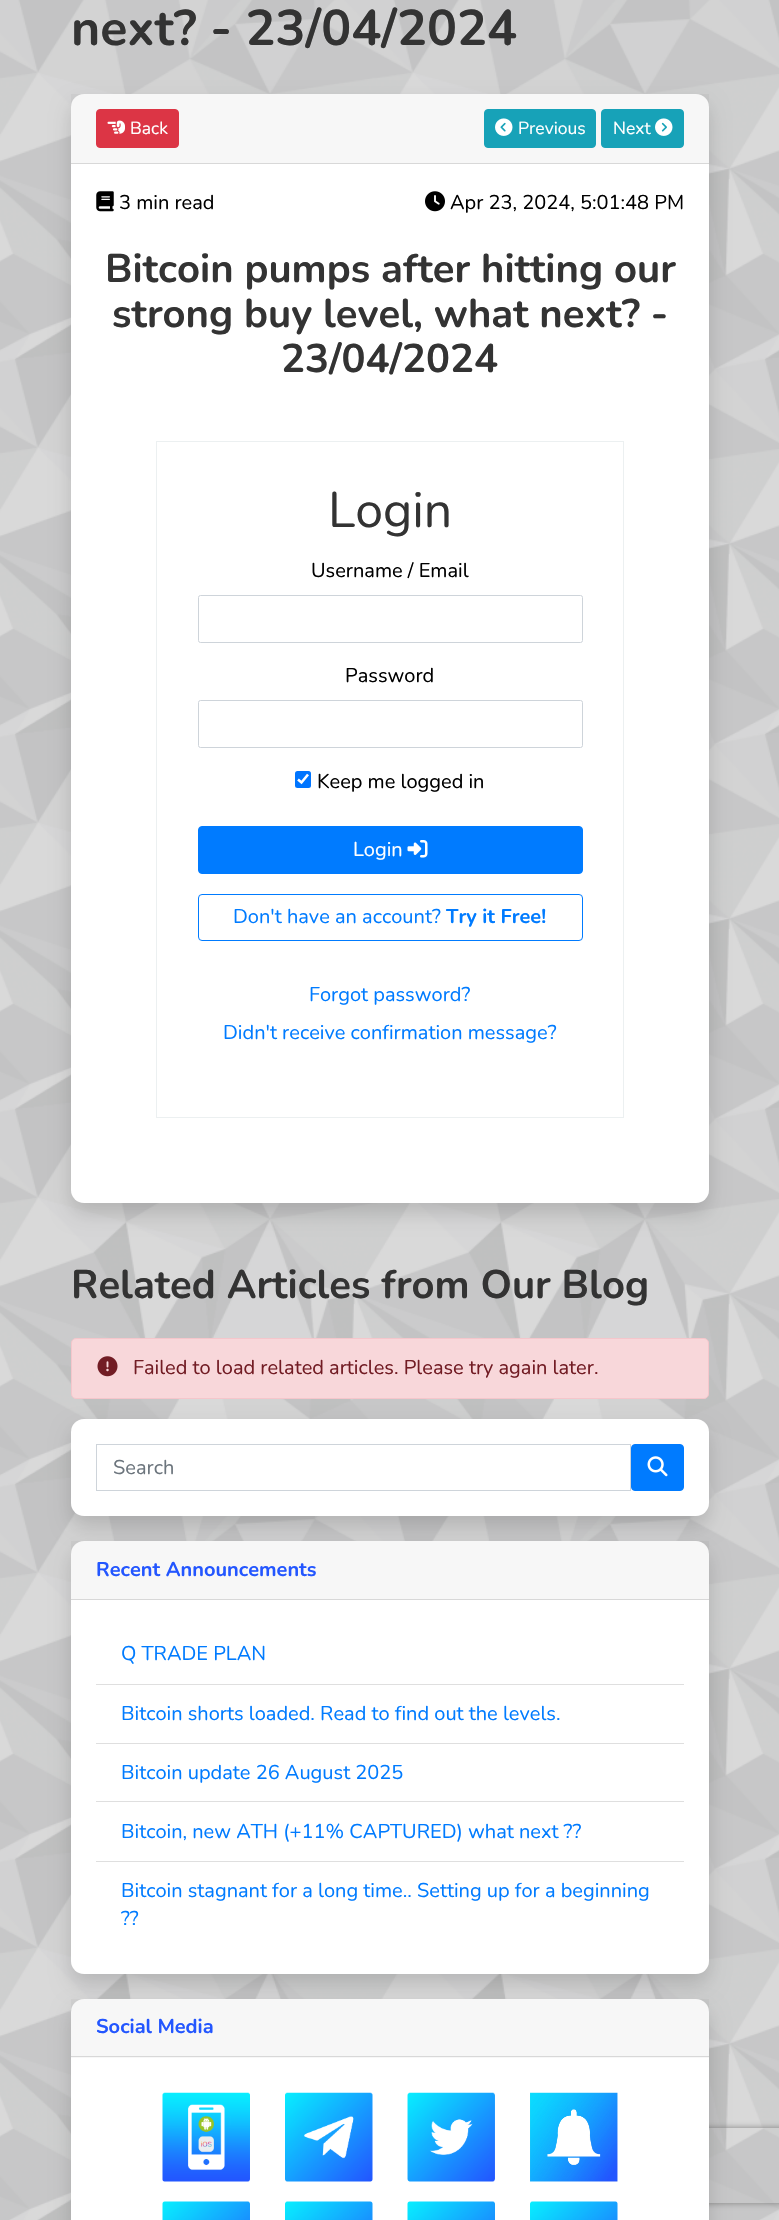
#include "include/core/SkBlurTypes.h"
#include "include/core/SkCanvas.h"
#include "include/core/SkData.h"
#include "include/core/SkFont.h"
#include "include/core/SkFontMgr.h"
#include "include/core/SkImage.h"
#include "include/core/SkMaskFilter.h"
#include "include/core/SkPaint.h"
#include "include/core/SkPathBuilder.h"
#include "include/core/SkTextBlob.h"
#include "include/effects/SkDashPathEffect.h"
#include "include/effects/SkGradientShader.h"
#include "include/utils/SkParsePath.h"

extern sk_sp<SkFontMgr> fontMgr;

void draw(SkCanvas* canvas) {
  SkPaint p;
  p.setAntiAlias(true);
  canvas->clear(SkColorSetRGB(211, 211, 211));
  canvas->drawImageRect(SkImages::DeferredFromEncodedData(SkData::MakeFromFileName("images/1.png")), SkRect::MakeLTRB(0, 0, 779, 2220), SkSamplingOptions());
  p.setColor(SkColorSetARGB(38, 0, 0, 0));
  p.setMaskFilter(SkMaskFilter::MakeBlur(kNormal_SkBlurStyle, 10));
  canvas->drawRoundRect(SkRect::MakeLTRB(71, 104, 709, 1213), 13, 13, p);
  p.setMaskFilter(nullptr);
  p.setColor(SK_ColorWHITE);
  canvas->drawRoundRect(SkRect::MakeLTRB(71, 94, 709, 1203), 13, 13, p);
  p.setColor(SkColorSetARGB(8, 0, 0, 0));
  canvas->drawRect(SkRect::MakeLTRB(71, 94, 709, 163), p);
  p.setColor(SkColorSetRGB(216, 216, 216));
  canvas->drawRect(SkRect::MakeLTRB(71, 163, 709, 164), p);
  p.setColor(SkColorSetRGB(220, 53, 69));
  canvas->drawRoundRect(SkRect::MakeLTRB(96.5f, 109.5f, 178.5f, 147.5f), 3.5f, 3.5f, p);
  p.setStyle(SkPaint::kStroke_Style);
  p.setStrokeWidth(1);
  canvas->drawRoundRect(SkRect::MakeLTRB(96.5f, 109.5f, 178.5f, 147.5f), 3.5f, 3.5f, p);
  canvas->drawImageRect(SkImages::DeferredFromEncodedData(SkData::MakeFromFileName("images/2.png")), SkRect::MakeLTRB(107, 120, 125, 134), SkSamplingOptions());
  p.setStyle(SkPaint::kFill_Style);
  p.setColor(SkColorSetRGB(23, 162, 184));
  canvas->drawRoundRect(SkRect::MakeLTRB(484.5f, 109.5f, 595.5f, 147.5f), 3.5f, 3.5f, p);
  p.setStyle(SkPaint::kStroke_Style);
  canvas->drawRoundRect(SkRect::MakeLTRB(484.5f, 109.5f, 595.5f, 147.5f), 3.5f, 3.5f, p);
  canvas->drawImageRect(SkImages::DeferredFromEncodedData(SkData::MakeFromFileName("images/3.png")), SkRect::MakeLTRB(495, 118, 513, 136), SkSamplingOptions());
  p.setStyle(SkPaint::kFill_Style);
  canvas->drawRoundRect(SkRect::MakeLTRB(601.5f, 109.5f, 683.5f, 147.5f), 3.5f, 3.5f, p);
  p.setStyle(SkPaint::kStroke_Style);
  canvas->drawRoundRect(SkRect::MakeLTRB(601.5f, 109.5f, 683.5f, 147.5f), 3.5f, 3.5f, p);
  canvas->drawImageRect(SkImages::DeferredFromEncodedData(SkData::MakeFromFileName("images/4.png")), SkRect::MakeLTRB(655, 118, 673, 136), SkSamplingOptions());
  canvas->drawImageRect(SkImages::DeferredFromEncodedData(SkData::MakeFromFileName("images/5.png")), SkRect::MakeLTRB(96, 191, 114, 212), SkSamplingOptions());
  canvas->drawImageRect(SkImages::DeferredFromEncodedData(SkData::MakeFromFileName("images/6.png")), SkRect::MakeLTRB(425, 191, 445, 212), SkSamplingOptions());
  p.setColor(SkColorSetRGB(236, 240, 241));
  canvas->drawRect(SkRect::MakeLTRB(156.5f, 441.5f, 623.5f, 1117.5f), p);
  p.setColor(SkColorSetRGB(206, 212, 218));
  canvas->drawRoundRect(SkRect::MakeLTRB(198.5f, 595.5f, 582.5f, 642.5f), 2, 2, p);
  canvas->drawRoundRect(SkRect::MakeLTRB(198.5f, 700.5f, 582.5f, 747.5f), 2, 2, p);
  p.setStyle(SkPaint::kFill_Style);
  p.setColor(SkColorSetRGB(0, 117, 255));
  canvas->drawRoundRect(SkRect::MakeLTRB(295, 771, 311, 788), 2.5f, 2.5f, p);
  p.setStyle(SkPaint::kStroke_Style);
  p.setStrokeWidth(2.6f);
  p.setColor(SK_ColorWHITE);
  canvas->drawPath(SkPathBuilder().moveTo(298, 779.5f).lineTo(301.5f, 782.5f).lineTo(308, 774.5f).detach(), p);
  p.setStyle(SkPaint::kFill_Style);
  p.setColor(SkColorSetRGB(0, 123, 255));
  canvas->drawRoundRect(SkRect::MakeLTRB(198.5f, 826.5f, 582.5f, 873.5f), 3.5f, 3.5f, p);
  p.setStyle(SkPaint::kStroke_Style);
  p.setStrokeWidth(1);
  canvas->drawRoundRect(SkRect::MakeLTRB(198.5f, 826.5f, 582.5f, 873.5f), 3.5f, 3.5f, p);
  canvas->drawImageRect(SkImages::DeferredFromEncodedData(SkData::MakeFromFileName("images/7.png")), SkRect::MakeLTRB(407, 840, 428, 858), SkSamplingOptions());
  canvas->save();
  canvas->clipPath(SkPathBuilder(SkPathFillType::kEvenOdd).moveTo(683, 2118).lineTo(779, 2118).lineTo(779, 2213).lineTo(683, 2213).close().moveTo(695.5f, 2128).lineTo(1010.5f, 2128).cubicTo(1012, 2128, 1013, 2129, 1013, 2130.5f).lineTo(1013, 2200.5f).cubicTo(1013, 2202, 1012, 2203, 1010.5f, 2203).lineTo(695.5f, 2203).cubicTo(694, 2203, 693, 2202, 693, 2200.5f).lineTo(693, 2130.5f).cubicTo(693, 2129, 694, 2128, 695.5f, 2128).close().detach(), true);
  p.setStyle(SkPaint::kFill_Style);
  p.setColor(SkColorSetRGB(128, 128, 128));
  p.setMaskFilter(SkMaskFilter::MakeBlur(kNormal_SkBlurStyle, 3));
  canvas->drawRoundRect(SkRect::MakeLTRB(693, 2128, 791, 2203), 2.5f, 2.5f, p);
  p.setMaskFilter(nullptr);
  canvas->restore();
  p.setStyle(SkPaint::kStroke_Style);
  p.setColor(SkColorSetRGB(0, 123, 255));
  canvas->drawRoundRect(SkRect::MakeLTRB(198.5f, 894.5f, 582.5f, 940.5f), 3.5f, 3.5f, p);
  p.setStyle(SkPaint::kFill_Style);
  p.setColor(SkColorSetRGB(248, 215, 218));
  canvas->drawRoundRect(SkRect::MakeLTRB(71.5f, 1338.5f, 708.5f, 1398.5f), 4.5f, 4.5f, p);
  p.setStyle(SkPaint::kStroke_Style);
  p.setColor(SkColorSetRGB(245, 198, 203));
  canvas->drawRoundRect(SkRect::MakeLTRB(71.5f, 1338.5f, 708.5f, 1398.5f), 4.5f, 4.5f, p);
  canvas->drawImageRect(SkImages::DeferredFromEncodedData(SkData::MakeFromFileName("images/8.png")), SkRect::MakeLTRB(97, 1356, 118, 1377), SkSamplingOptions());
  p.setStyle(SkPaint::kFill_Style);
  p.setColor(SkColorSetARGB(38, 0, 0, 0));
  p.setMaskFilter(SkMaskFilter::MakeBlur(kNormal_SkBlurStyle, 10));
  canvas->drawRoundRect(SkRect::MakeLTRB(71, 1429, 709, 1526), 13, 13, p);
  p.setMaskFilter(nullptr);
  p.setColor(SK_ColorWHITE);
  canvas->drawRoundRect(SkRect::MakeLTRB(71, 1419, 709, 1516), 13, 13, p);
  p.setStyle(SkPaint::kStroke_Style);
  p.setColor(SkColorSetRGB(206, 212, 218));
  canvas->drawRect(SkRect::MakeLTRB(96.5f, 1444.5f, 630.5f, 1490.5f), p);
  p.setStyle(SkPaint::kFill_Style);
  p.setColor(SkColorSetRGB(0, 123, 255));
  canvas->drawRoundRect(SkRect::MakeLTRB(631.5f, 1444.5f, 683.5f, 1490.5f), 3.5f, 3.5f, p);
  p.setStyle(SkPaint::kStroke_Style);
  canvas->drawRoundRect(SkRect::MakeLTRB(631.5f, 1444.5f, 683.5f, 1490.5f), 3.5f, 3.5f, p);
  canvas->drawImageRect(SkImages::DeferredFromEncodedData(SkData::MakeFromFileName("images/9.png")), SkRect::MakeLTRB(647, 1456, 668, 1477), SkSamplingOptions());
  p.setStyle(SkPaint::kFill_Style);
  p.setColor(SkColorSetARGB(38, 0, 0, 0));
  p.setMaskFilter(SkMaskFilter::MakeBlur(kNormal_SkBlurStyle, 10));
  canvas->drawRoundRect(SkRect::MakeLTRB(71, 1551, 709, 1984), 13, 13, p);
  p.setMaskFilter(nullptr);
  p.setColor(SK_ColorWHITE);
  canvas->drawRoundRect(SkRect::MakeLTRB(71, 1541, 709, 1974), 13, 13, p);
  p.setColor(SkColorSetARGB(8, 0, 0, 0));
  canvas->drawRect(SkRect::MakeLTRB(71, 1541, 709, 1599), p);
  p.setColor(SkColorSetRGB(216, 216, 216));
  canvas->drawRect(SkRect::MakeLTRB(71, 1599, 709, 1600), p);
  p.setColor(SkColorSetRGB(223, 223, 223));
  canvas->drawRect(SkRect::MakeLTRB(96, 1684, 684, 1685), p);
  canvas->drawRect(SkRect::MakeLTRB(96, 1743, 684, 1744), p);
  canvas->drawRect(SkRect::MakeLTRB(96, 1801, 684, 1802), p);
  canvas->drawRect(SkRect::MakeLTRB(96, 1861, 684, 1862), p);
  p.setColor(SkColorSetARGB(38, 0, 0, 0));
  p.setMaskFilter(SkMaskFilter::MakeBlur(kNormal_SkBlurStyle, 10));
  canvas->drawRoundRect(SkRect::MakeLTRB(71, 2009, 709, 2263), 13, 13, p);
  p.setMaskFilter(nullptr);
  p.setColor(SK_ColorWHITE);
  canvas->drawRoundRect(SkRect::MakeLTRB(71, 1999, 709, 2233), 13, 13, p);
  p.setColor(SkColorSetARGB(8, 0, 0, 0));
  canvas->drawRect(SkRect::MakeLTRB(71, 1999, 709, 2058), p);
  p.setColor(SkColorSetRGB(216, 216, 216));
  canvas->drawRect(SkRect::MakeLTRB(71, 2056, 709, 2057), p);
  canvas->drawImageRect(SkImages::DeferredFromEncodedData(SkData::MakeFromFileName("images/10.png")), SkRect::MakeLTRB(162, 2092, 250, 2182), SkSamplingOptions());
  canvas->drawImageRect(SkImages::DeferredFromEncodedData(SkData::MakeFromFileName("images/11.png")), SkRect::MakeLTRB(285, 2092, 373, 2182), SkSamplingOptions());
  canvas->drawImageRect(SkImages::DeferredFromEncodedData(SkData::MakeFromFileName("images/12.png")), SkRect::MakeLTRB(407, 2092, 495, 2182), SkSamplingOptions());
  canvas->drawImageRect(SkImages::DeferredFromEncodedData(SkData::MakeFromFileName("images/13.png")), SkRect::MakeLTRB(530, 2092, 618, 2182), SkSamplingOptions());
  canvas->drawImageRect(SkImages::DeferredFromEncodedData(SkData::MakeFromFileName("images/14.png")), SkRect::MakeLTRB(162, 2201, 250, 2220), SkSamplingOptions());
  canvas->drawImageRect(SkImages::DeferredFromEncodedData(SkData::MakeFromFileName("images/15.png")), SkRect::MakeLTRB(285, 2201, 373, 2220), SkSamplingOptions());
  canvas->drawImageRect(SkImages::DeferredFromEncodedData(SkData::MakeFromFileName("images/16.png")), SkRect::MakeLTRB(407, 2201, 495, 2220), SkSamplingOptions());
  canvas->drawImageRect(SkImages::DeferredFromEncodedData(SkData::MakeFromFileName("images/17.png")), SkRect::MakeLTRB(530, 2201, 618, 2220), SkSamplingOptions());
  SkFont font1(fontMgr->matchFamilyStyle("Nunito", SkFontStyle::Bold()), 50);
  font1.setSubpixel(true);
  p.setColor(SkColorSetRGB(51, 51, 51));
  canvas->drawString("next? - 23/04/2024", 71, 45, font1, p);
  SkFont font2(fontMgr->matchFamilyStyle("Nunito", SkFontStyle::Normal()), 17.5f);
  font2.setSubpixel(true);
  p.setColor(SK_ColorWHITE);
  canvas->drawString("Back", 130, 134, font2, p);
  canvas->drawString("Previous", 518, 134, font2, p);
  canvas->drawString("Next", 613, 134, font2, p);
  SkFont font3(fontMgr->matchFamilyStyle("Nunito", SkFontStyle::Normal()), 20);
  font3.setSubpixel(true);
  p.setColor(SK_ColorBLACK);
  canvas->drawString("3 min read", 119, 209, font3, p);
  canvas->drawString("Apr 23, 2024, 5:01:48 PM", 450, 209, font3, p);
  SkFont font4(fontMgr->matchFamilyStyle("Nunito", SkFontStyle::Bold()), 40);
  font4.setSubpixel(true);
  p.setColor(SkColorSetRGB(51, 51, 51));
  canvas->drawString("Bitcoin pumps after hitting our", 105, 282, font4, p);
  canvas->drawString("strong buy level, what next? -", 112, 327, font4, p);
  canvas->drawString("23/04/2024", 281, 372, font4, p);
  SkFont font5(fontMgr->matchFamilyStyle("Nunito", SkFontStyle::Normal()), 50);
  font5.setSubpixel(true);
  canvas->drawString("Login", 328, 527, font5, p);
  p.setColor(SK_ColorBLACK);
  canvas->drawString("Username / Email", 311, 577, font3, p);
  canvas->drawString("Password", 345, 682, font3, p);
  canvas->drawString("Keep me logged in", 317, 788, font3, p);
  p.setColor(SK_ColorWHITE);
  canvas->drawString("Login", 353, 856, font3, p);
  p.setColor(SkColorSetRGB(0, 123, 255));
  canvas->drawString("Don't have an account?", 233, 923, font3, p);
  SkFont font6(fontMgr->matchFamilyStyle("Nunito", SkFontStyle::Bold()), 20);
  font6.setSubpixel(true);
  canvas->drawString("Try it Free!", 446, 923, font6, p);
  canvas->drawString("Forgot password?", 309, 1001, font3, p);
  canvas->drawString("Didn't receive confirmation message?", 223, 1039, font3, p);
  p.setColor(SkColorSetRGB(51, 51, 51));
  canvas->drawString("Related Articles from Our Blog", 71, 1298, font4, p);
  p.setColor(SkColorSetRGB(114, 28, 36));
  canvas->drawString("Failed to load related articles. Please try again later.", 133, 1374, font3, p);
  p.setColor(SkColorSetRGB(108, 117, 125));
  canvas->drawString("Search", 113, 1474, font3, p);
  p.setColor(SkColorSetRGB(35, 86, 255));
  canvas->drawString("Recent Announcements", 96, 1576, font6, p);
  p.setColor(SkColorSetRGB(0, 123, 255));
  canvas->drawString("Q TRADE PLAN", 121, 1660, font3, p);
  canvas->drawString("Bitcoin shorts loaded. Read to find out the levels.", 121, 1720, font3, p);
  canvas->drawString("Bitcoin update 26 August 2025", 121, 1779, font3, p);
  canvas->drawString("Bitcoin, new ATH (+11% CAPTURED) what next ?\077", 121, 1838, font3, p);
  canvas->drawString("Bitcoin stagnant for a long time.. Setting up for a beginning", 121, 1897, font3, p);
  canvas->drawString("?\077", 121, 1925, font3, p);
  p.setColor(SkColorSetRGB(35, 86, 255));
  canvas->drawString("Social Media", 96, 2033, font6, p);
}
